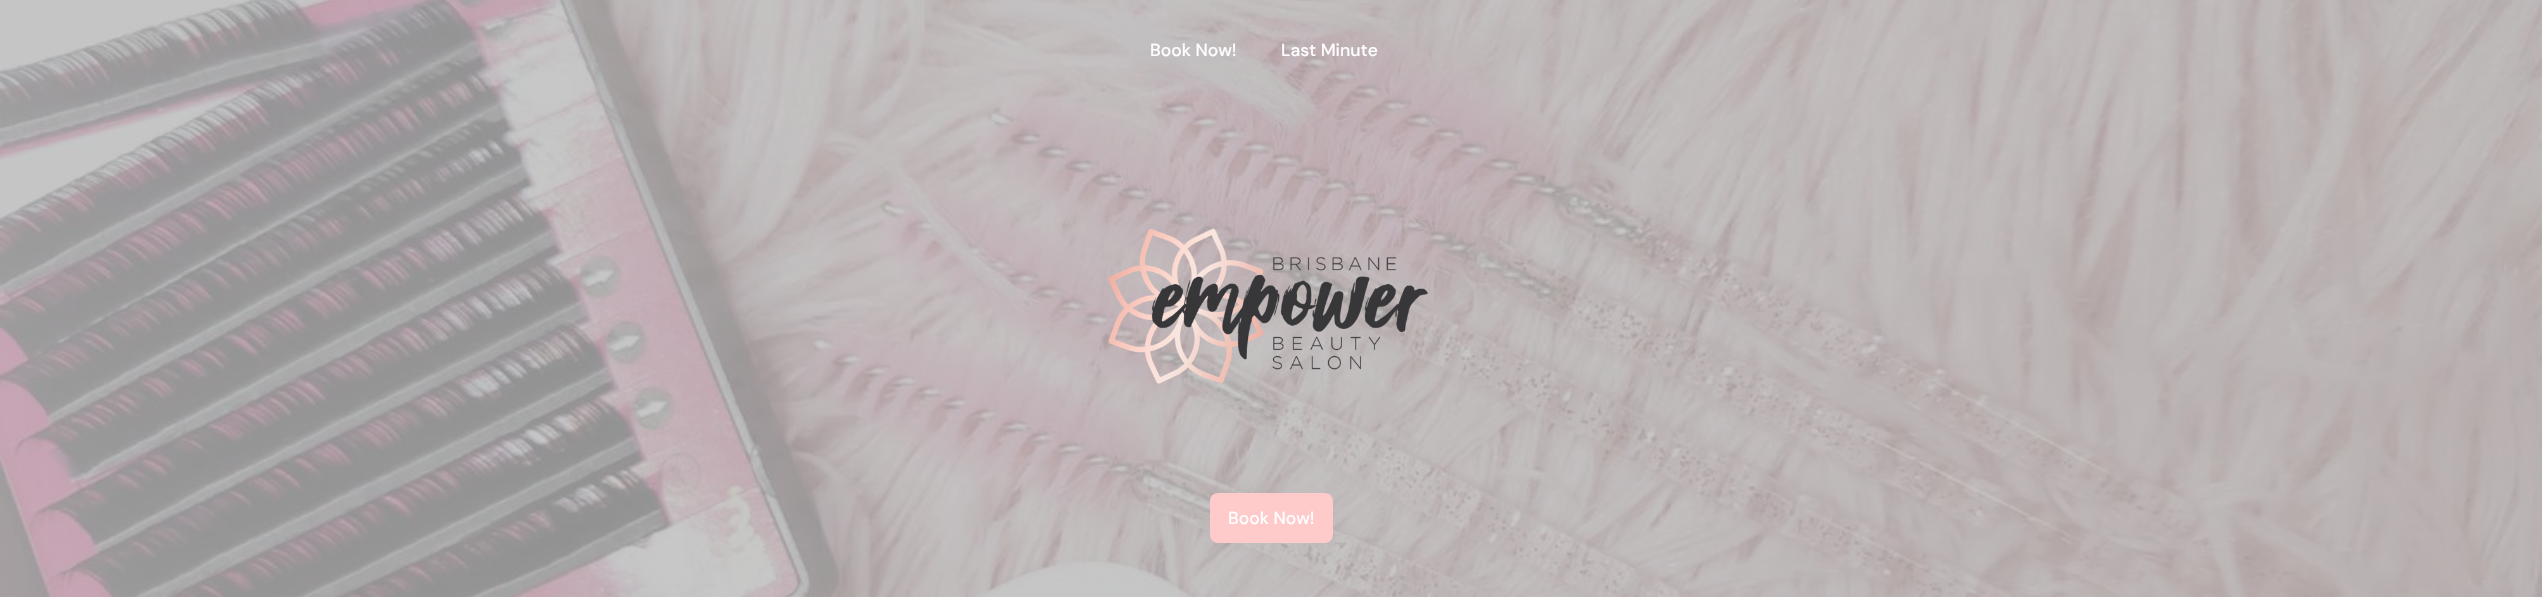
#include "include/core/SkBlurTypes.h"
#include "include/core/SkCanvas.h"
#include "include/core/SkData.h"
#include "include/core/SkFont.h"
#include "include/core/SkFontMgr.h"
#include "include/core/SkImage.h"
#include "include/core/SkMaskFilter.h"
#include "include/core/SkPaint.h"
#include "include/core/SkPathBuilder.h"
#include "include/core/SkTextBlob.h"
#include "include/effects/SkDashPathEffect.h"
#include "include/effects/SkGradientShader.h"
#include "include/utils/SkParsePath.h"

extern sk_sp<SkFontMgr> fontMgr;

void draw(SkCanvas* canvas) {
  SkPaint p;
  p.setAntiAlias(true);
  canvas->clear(SK_ColorWHITE);
  canvas->drawImageRect(SkImages::DeferredFromEncodedData(SkData::MakeFromFileName("images/1.png")), SkRect::MakeLTRB(0, 0, 2542, 597), SkSamplingOptions());
  canvas->drawImageRect(SkImages::DeferredFromEncodedData(SkData::MakeFromFileName("images/2.png")), SkRect::MakeLTRB(1108, 228, 1428, 384), SkSamplingOptions());
  p.setColor(SkColorSetRGB(254, 202, 202));
  canvas->drawRoundRect(SkRect::MakeLTRB(1210, 493, 1333, 543), 8, 8, p);
  SkFont font1(fontMgr->matchFamilyStyle("DM Sans", SkFontStyle(500, SkFontStyle::kNormal_Width, SkFontStyle::kUpright_Slant)), 17.5f);
  font1.setSubpixel(true);
  p.setColor(SK_ColorWHITE);
  canvas->drawString("Book Now!", 1150, 56, font1, p);
  canvas->drawString("Last Minute", 1281, 56, font1, p);
  canvas->drawString("Book Now!", 1228, 524, font1, p);
}
